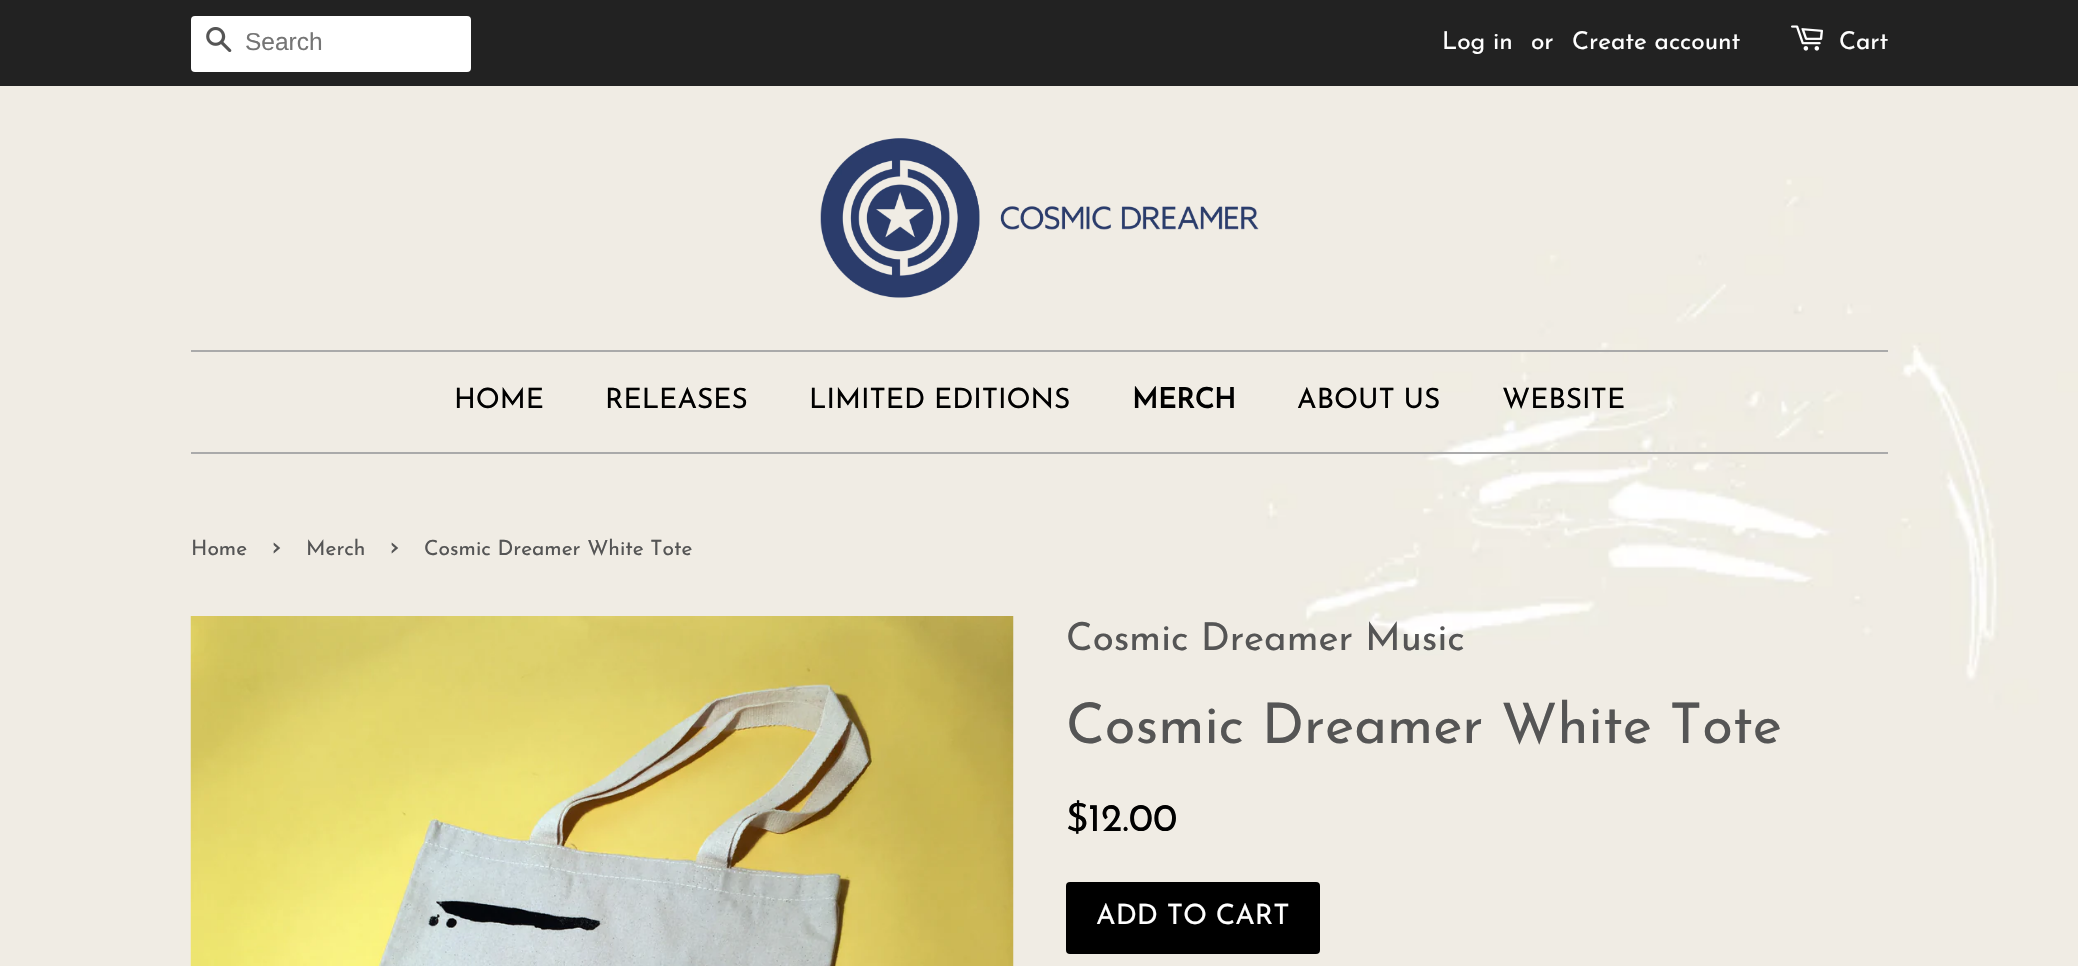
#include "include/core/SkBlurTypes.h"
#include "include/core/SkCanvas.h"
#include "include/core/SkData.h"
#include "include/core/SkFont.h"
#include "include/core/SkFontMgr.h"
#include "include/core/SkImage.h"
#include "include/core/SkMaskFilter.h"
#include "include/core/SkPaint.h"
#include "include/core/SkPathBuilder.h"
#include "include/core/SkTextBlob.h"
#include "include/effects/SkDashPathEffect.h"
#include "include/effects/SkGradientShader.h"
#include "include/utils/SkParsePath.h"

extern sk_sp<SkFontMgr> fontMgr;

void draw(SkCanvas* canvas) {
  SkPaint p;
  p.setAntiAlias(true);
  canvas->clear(SK_ColorWHITE);
  canvas->drawImageRect(SkImages::DeferredFromEncodedData(SkData::MakeFromFileName("images/1.png")), SkRect::MakeLTRB(0, 86, 2078, 966), SkSamplingOptions());
  p.setColor(SkColorSetRGB(34, 34, 34));
  canvas->drawRect(SkRect::MakeLTRB(0, 0, 2078, 86), p);
  p.setColor(SK_ColorWHITE);
  canvas->drawRoundRect(SkRect::MakeLTRB(191, 16, 471, 72), 4, 4, p);
  canvas->drawImageRect(SkImages::DeferredFromEncodedData(SkData::MakeFromFileName("images/2.png")), SkRect::MakeLTRB(206, 27, 232, 52), SkSamplingOptions());
  canvas->drawImageRect(SkImages::DeferredFromEncodedData(SkData::MakeFromFileName("images/3.png")), SkRect::MakeLTRB(1791, 25, 1823, 51), SkSamplingOptions());
  canvas->drawImageRect(SkImages::DeferredFromEncodedData(SkData::MakeFromFileName("images/4.png")), SkRect::MakeLTRB(820, 138, 1259, 298), SkSamplingOptions());
  p.setColor(SkColorSetRGB(170, 170, 170));
  canvas->drawRect(SkRect::MakeLTRB(191, 350, 1888, 352), p);
  canvas->drawRect(SkRect::MakeLTRB(191, 452, 1888, 454), p);
  canvas->drawImageRect(SkImages::DeferredFromEncodedData(SkData::MakeFromFileName("images/5.png")), SkRect::MakeLTRB(190, 616, 1014, 966), SkSamplingOptions());
  p.setColor(SK_ColorBLACK);
  canvas->drawRoundRect(SkRect::MakeLTRB(1066, 882, 1320, 954), 4, 4, p);
  SkFont font1(fontMgr->matchFamilyStyle("Liberation Sans", SkFontStyle::Normal()), 24.5f);
  font1.setSubpixel(true);
  p.setColor(SkColorSetRGB(117, 117, 117));
  canvas->drawString("Search", 245, 50, font1, p);
  SkFont font2(fontMgr->matchFamilyStyle("Josefin Sans", SkFontStyle(100, SkFontStyle::kNormal_Width, SkFontStyle::kUpright_Slant)), 24.5f);
  font2.setSubpixel(true);
  p.setColor(SK_ColorWHITE);
  canvas->drawString("Log in", 1442, 49, font2, p);
  canvas->drawString("or", 1531, 49, font2, p);
  canvas->drawString("Create account", 1572, 49, font2, p);
  canvas->drawString("Cart", 1839, 49, font2, p);
  SkFont font3(fontMgr->matchFamilyStyle("Josefin Sans", SkFontStyle(100, SkFontStyle::kNormal_Width, SkFontStyle::kUpright_Slant)), 28);
  font3.setSubpixel(true);
  p.setColor(SK_ColorBLACK);
  canvas->drawString("HOME", 454, 408, font3, p);
  canvas->drawString("RELEASES", 605, 408, font3, p);
  canvas->drawString("LIMITED EDITIONS", 809, 408, font3, p);
  SkFont font4(fontMgr->matchFamilyStyle("Josefin Sans", SkFontStyle::Bold()), 28);
  font4.setSubpixel(true);
  canvas->drawString("MERCH", 1132, 408, font4, p);
  canvas->drawString("ABOUT US", 1297, 408, font3, p);
  canvas->drawString("WEBSITE", 1502, 408, font3, p);
  SkFont font5(fontMgr->matchFamilyStyle("Josefin Sans", SkFontStyle(100, SkFontStyle::kNormal_Width, SkFontStyle::kUpright_Slant)), 21);
  font5.setSubpixel(true);
  p.setColor(SkColorSetRGB(85, 85, 85));
  canvas->drawString("Home", 191, 555, font5, p);
  SkFont font6(fontMgr->matchFamilyStyle("Josefin Sans", SkFontStyle(100, SkFontStyle::kNormal_Width, SkFontStyle::kUpright_Slant)), 29);
  font6.setSubpixel(true);
  canvas->drawString("›", 271, 555, font6, p);
  canvas->drawString("Merch", 306, 555, font5, p);
  canvas->drawString("›", 389, 555, font6, p);
  canvas->drawString("Cosmic Dreamer White Tote", 424, 555, font5, p);
  SkFont font7(fontMgr->matchFamilyStyle("Josefin Sans", SkFontStyle(100, SkFontStyle::kNormal_Width, SkFontStyle::kUpright_Slant)), 38.5f);
  font7.setSubpixel(true);
  canvas->drawString("Cosmic Dreamer Music", 1066, 650, font7, p);
  SkFont font8(fontMgr->matchFamilyStyle("Josefin Sans", SkFontStyle(100, SkFontStyle::kNormal_Width, SkFontStyle::kUpright_Slant)), 56);
  font8.setSubpixel(true);
  canvas->drawString("Cosmic Dreamer White Tote", 1066, 743, font8, p);
  SkFont font9(fontMgr->matchFamilyStyle("Josefin Sans", SkFontStyle(100, SkFontStyle::kNormal_Width, SkFontStyle::kUpright_Slant)), 39);
  font9.setSubpixel(true);
  p.setColor(SK_ColorBLACK);
  canvas->drawString("$12.00", 1066, 831, font9, p);
  p.setColor(SK_ColorWHITE);
  canvas->drawString("ADD TO CART", 1096, 924, font3, p);
}
